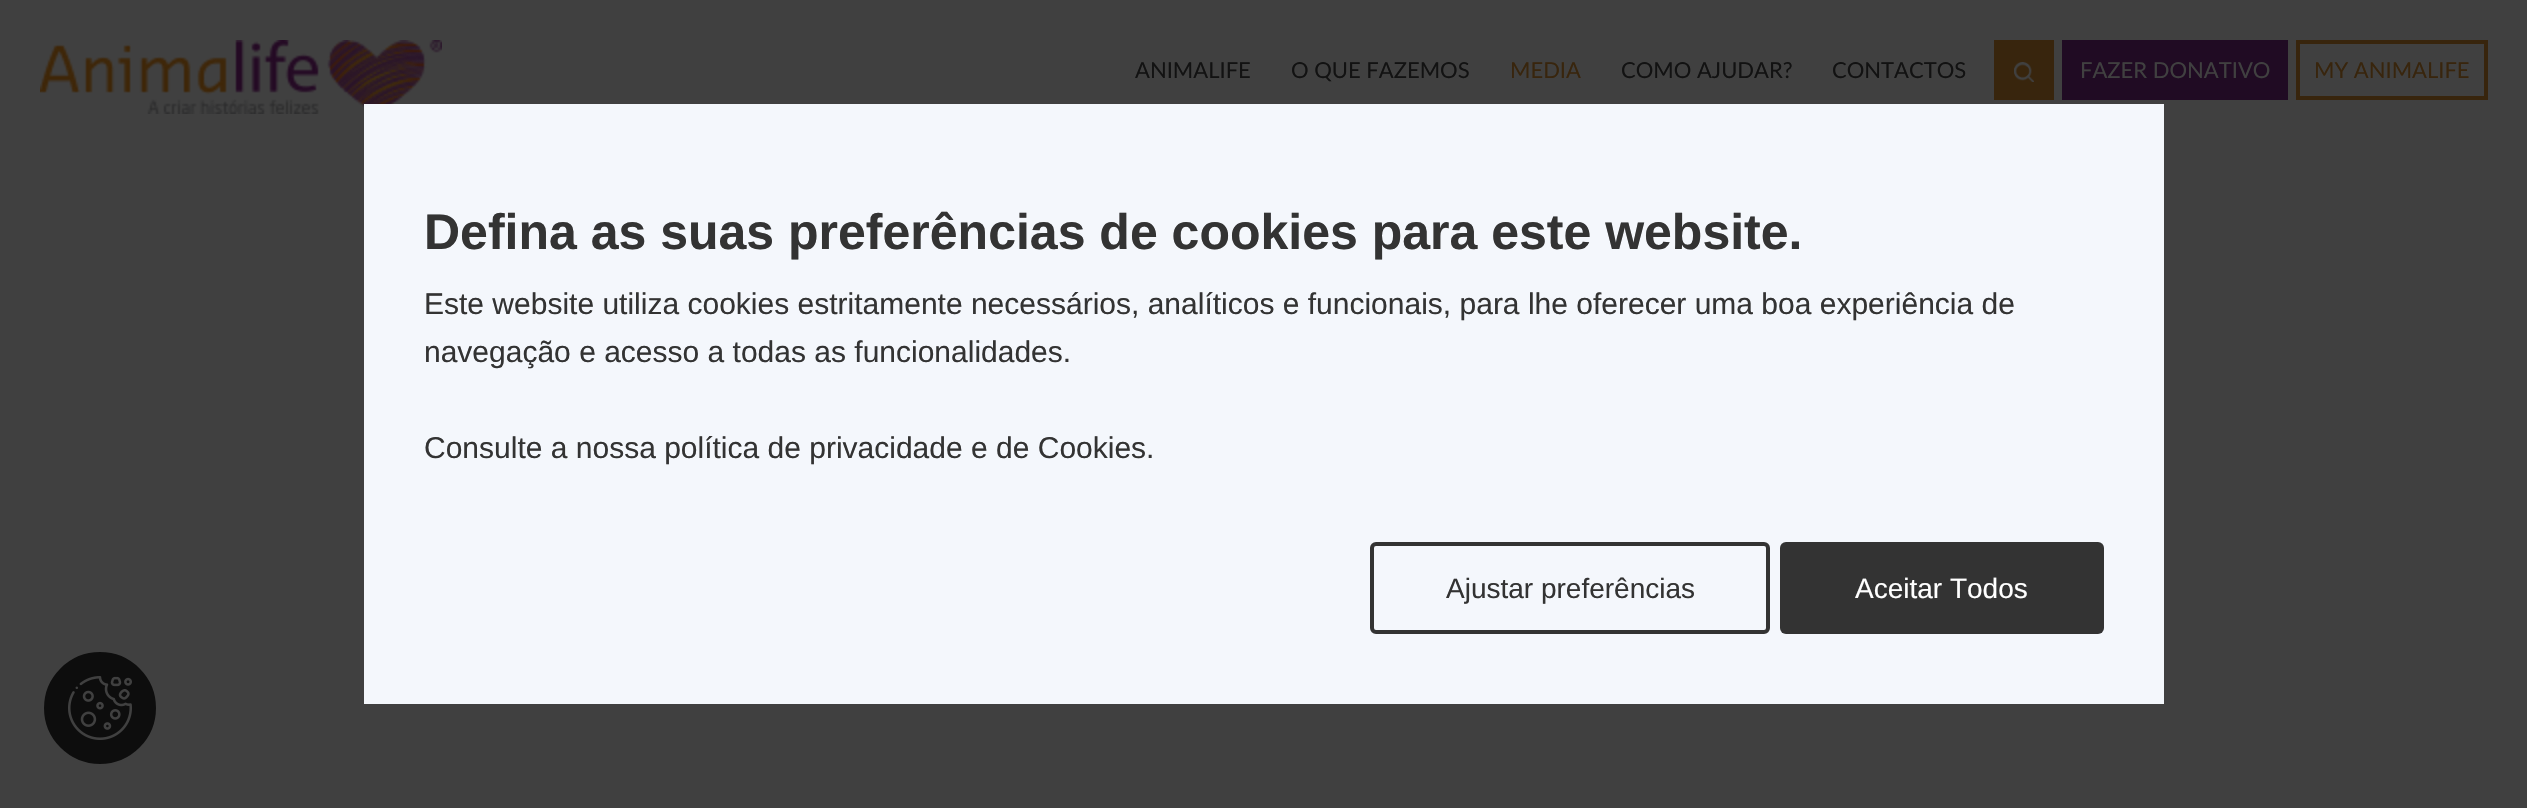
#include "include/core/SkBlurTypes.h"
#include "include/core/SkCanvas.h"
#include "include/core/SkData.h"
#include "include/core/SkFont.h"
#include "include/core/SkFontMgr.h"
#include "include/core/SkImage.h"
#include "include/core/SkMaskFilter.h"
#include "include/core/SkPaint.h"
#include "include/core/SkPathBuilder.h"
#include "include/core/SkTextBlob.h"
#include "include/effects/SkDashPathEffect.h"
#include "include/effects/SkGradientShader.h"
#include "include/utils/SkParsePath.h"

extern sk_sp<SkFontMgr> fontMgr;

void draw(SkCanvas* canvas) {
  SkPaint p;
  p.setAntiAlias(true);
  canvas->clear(SkColorSetRGB(64, 64, 64));
  canvas->drawImageRect(SkImages::DeferredFromEncodedData(SkData::MakeFromFileName("images/1.png")), SkRect::MakeLTRB(40, 40, 442, 114), SkSamplingOptions());
  p.setColor(SkColorSetRGB(56, 37, 13));
  canvas->drawRect(SkRect::MakeLTRB(1994, 40, 2054, 100), p);
  canvas->drawImageRect(SkImages::DeferredFromEncodedData(SkData::MakeFromFileName("images/2.png")), SkRect::MakeLTRB(2014, 62, 2034, 82), SkSamplingOptions());
  p.setColor(SkColorSetRGB(32, 11, 35));
  canvas->drawRect(SkRect::MakeLTRB(2062, 40, 2288, 100), p);
  p.setStyle(SkPaint::kStroke_Style);
  p.setStrokeWidth(4);
  p.setColor(SkColorSetRGB(56, 37, 13));
  canvas->drawRect(SkRect::MakeLTRB(2298, 42, 2486, 98), p);
  p.setStyle(SkPaint::kFill_Style);
  p.setColor(SkColorSetRGB(244, 247, 252));
  canvas->drawRect(SkRect::MakeLTRB(364, 104, 2164, 704), p);
  p.setStyle(SkPaint::kStroke_Style);
  p.setColor(SkColorSetRGB(51, 51, 51));
  canvas->drawRoundRect(SkRect::MakeLTRB(1372, 544, 1768, 632), 4, 4, p);
  p.setStyle(SkPaint::kFill_Style);
  canvas->drawRoundRect(SkRect::MakeLTRB(1780, 542, 2104, 634), 6, 6, p);
  p.setColor(SkColorSetRGB(13, 13, 13));
  canvas->drawCircle(100, 708, 58, p);
  p.setStyle(SkPaint::kStroke_Style);
  p.setColor(SkColorSetRGB(64, 64, 64));
  canvas->drawCircle(100, 708, 58, p);
  canvas->drawImageRect(SkImages::DeferredFromEncodedData(SkData::MakeFromFileName("images/3.png")), SkRect::MakeLTRB(68, 676, 132, 740), SkSamplingOptions());
  SkFont font1(fontMgr->matchFamilyStyle("Lato", SkFontStyle::Normal()), 22);
  font1.setSubpixel(true);
  p.setStyle(SkPaint::kFill_Style);
  p.setColor(SkColorSetRGB(18, 18, 18));
  canvas->drawString("ANIMALIFE", 1135, 78, font1, p);
  canvas->drawString("O QUE FAZEMOS", 1291, 78, font1, p);
  p.setColor(SkColorSetRGB(56, 37, 13));
  canvas->drawString("MEDIA", 1510, 78, font1, p);
  p.setColor(SkColorSetRGB(18, 18, 18));
  canvas->drawString("COMO AJUDAR?", 1621, 78, font1, p);
  canvas->drawString("CONTACTOS", 1832, 78, font1, p);
  p.setColor(SkColorSetRGB(64, 64, 64));
  canvas->drawString("FAZER DONATIVO", 2080, 78, font1, p);
  p.setColor(SkColorSetRGB(56, 37, 13));
  canvas->drawString("MY ANIMALIFE", 2314, 78, font1, p);
  SkFont font2(fontMgr->matchFamilyStyle("Liberation Sans", SkFontStyle::Bold()), 50);
  font2.setSubpixel(true);
  p.setColor(SkColorSetRGB(51, 51, 51));
  canvas->drawString("Defina as suas preferências de cookies para este website.", 424, 249, font2, p);
  SkFont font3(fontMgr->matchFamilyStyle("Liberation Sans", SkFontStyle::Normal()), 30);
  font3.setSubpixel(true);
  canvas->drawString("Este website utiliza cookies estritamente necessários, analíticos e funcionais, para lhe oferecer uma boa experiência de", 424, 314, font3, p);
  canvas->drawString("navegação e acesso a todas as funcionalidades.", 424, 362, font3, p);
  canvas->drawString("Consulte a nossa política de privacidade e de Cookies.", 424, 458, font3, p);
  SkFont font4(fontMgr->matchFamilyStyle("Liberation Sans", SkFontStyle::Normal()), 28);
  font4.setSubpixel(true);
  canvas->drawString("Ajustar preferências", 1446, 598, font4, p);
  p.setColor(SK_ColorWHITE);
  canvas->drawString("Aceitar Todos", 1855, 598, font4, p);
}
